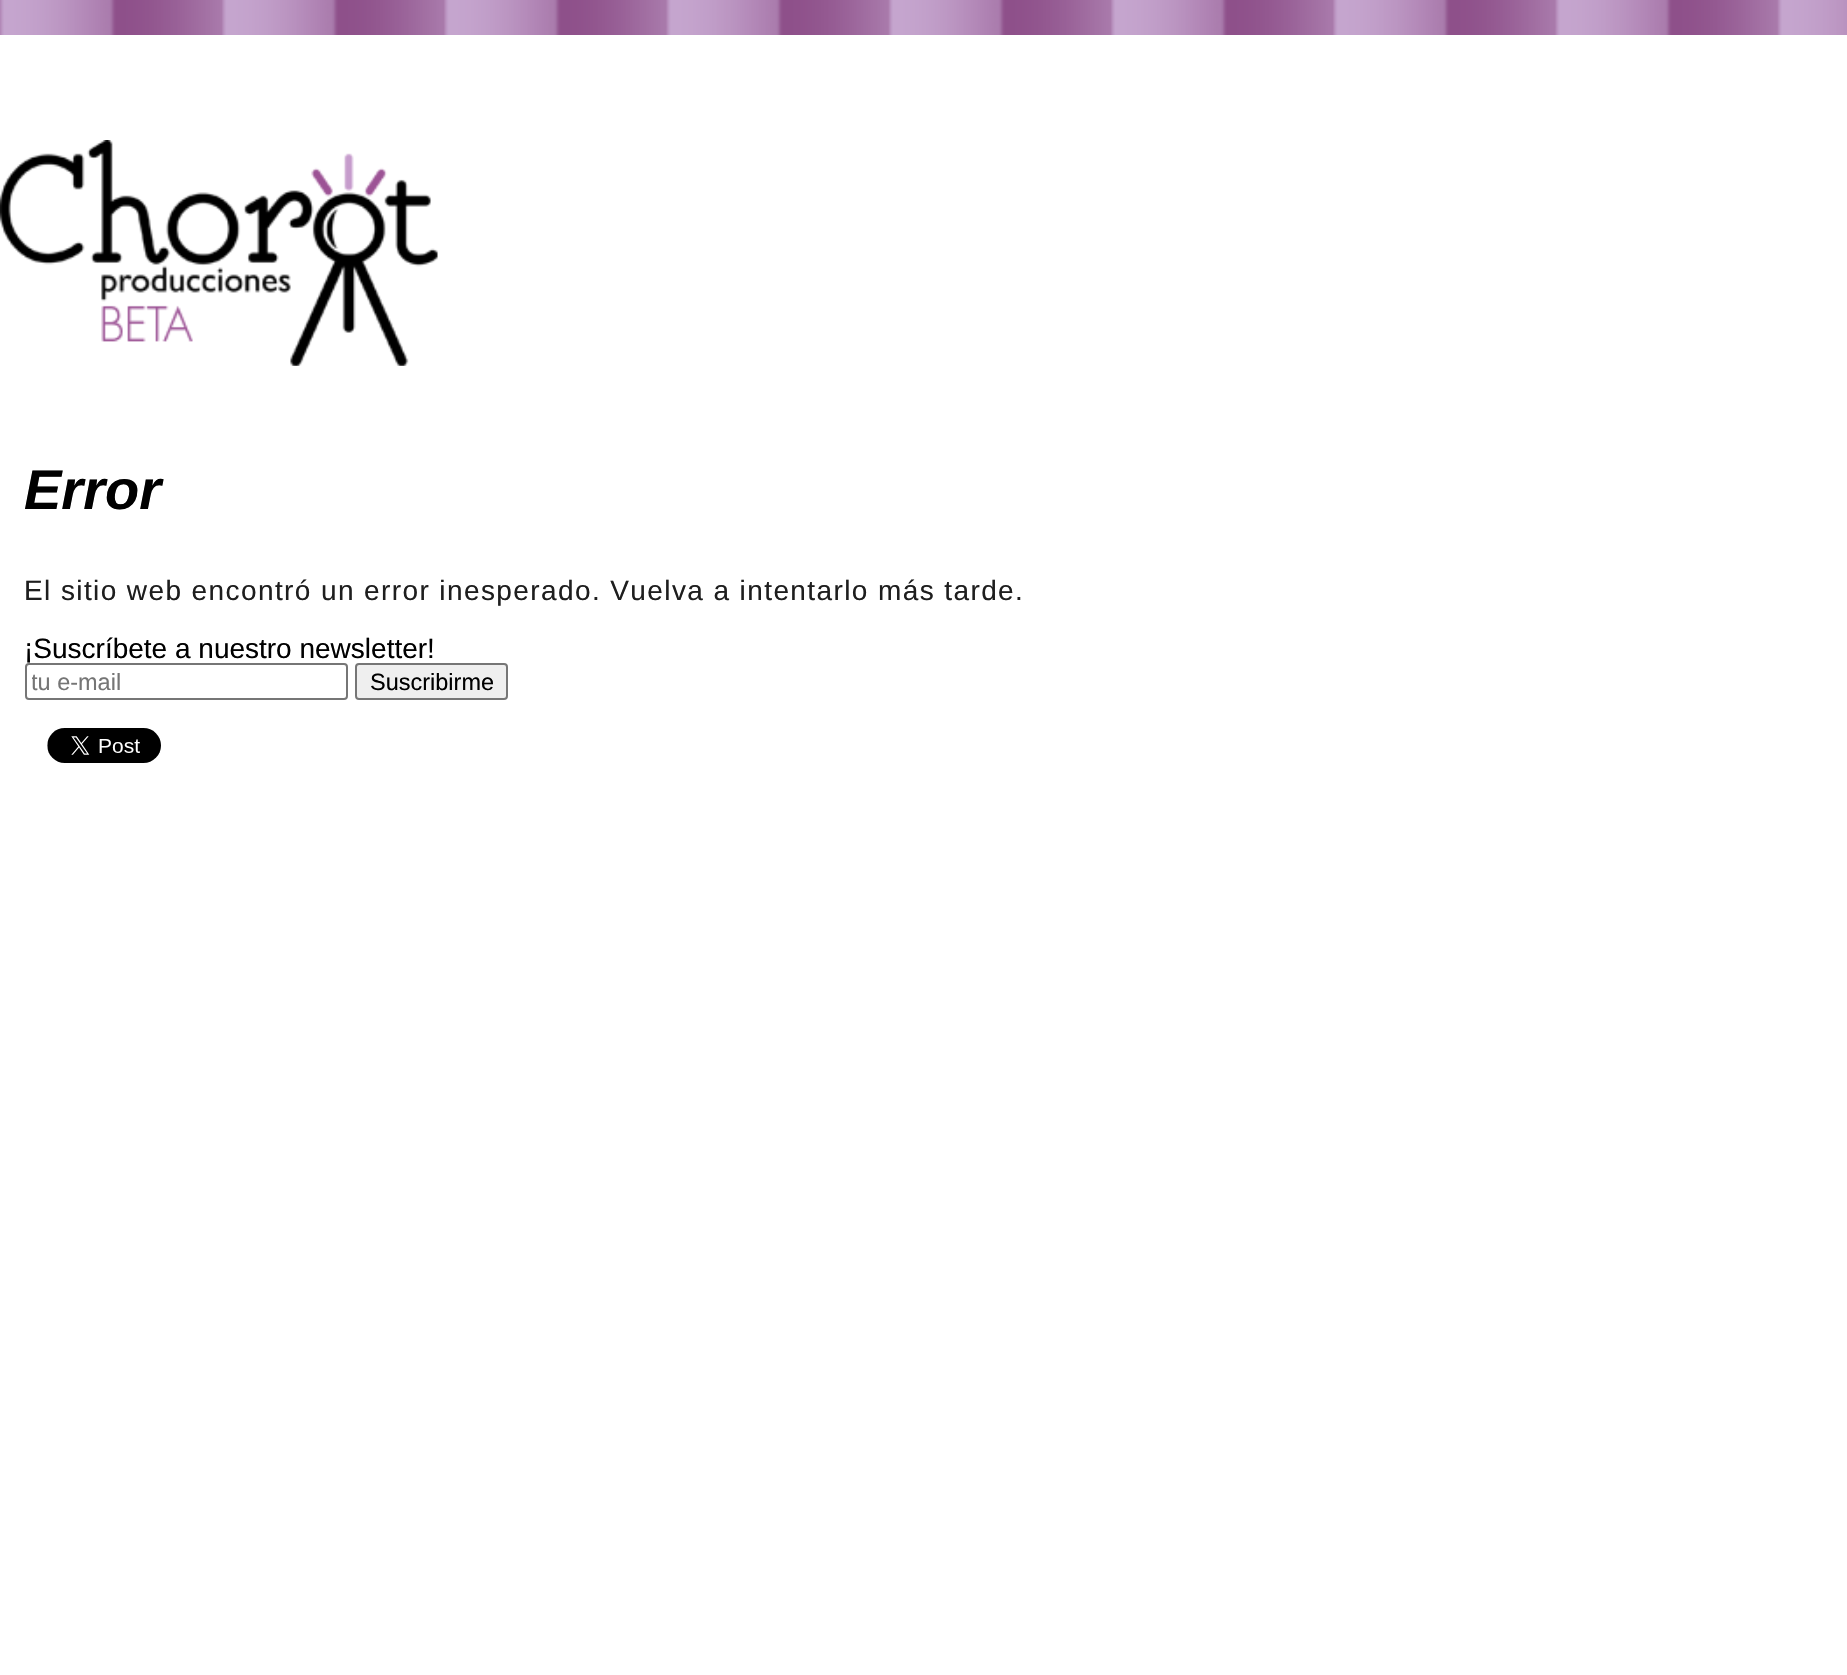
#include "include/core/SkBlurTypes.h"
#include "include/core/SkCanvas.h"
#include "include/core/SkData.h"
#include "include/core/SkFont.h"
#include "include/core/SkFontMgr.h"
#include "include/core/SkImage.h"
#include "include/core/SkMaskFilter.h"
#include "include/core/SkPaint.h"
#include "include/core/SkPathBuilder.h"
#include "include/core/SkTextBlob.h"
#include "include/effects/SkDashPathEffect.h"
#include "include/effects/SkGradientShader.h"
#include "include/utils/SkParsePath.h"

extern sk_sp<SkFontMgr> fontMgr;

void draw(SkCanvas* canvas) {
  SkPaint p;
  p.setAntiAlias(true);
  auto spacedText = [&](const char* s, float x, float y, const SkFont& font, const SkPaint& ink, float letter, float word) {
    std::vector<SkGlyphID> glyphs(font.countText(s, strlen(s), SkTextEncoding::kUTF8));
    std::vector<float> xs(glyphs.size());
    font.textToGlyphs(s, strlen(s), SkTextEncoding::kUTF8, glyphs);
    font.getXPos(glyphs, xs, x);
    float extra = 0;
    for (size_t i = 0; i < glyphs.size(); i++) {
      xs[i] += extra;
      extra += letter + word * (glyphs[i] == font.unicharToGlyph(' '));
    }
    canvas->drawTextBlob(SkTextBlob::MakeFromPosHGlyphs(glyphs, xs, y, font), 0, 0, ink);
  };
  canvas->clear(SK_ColorWHITE);
  canvas->drawImageRect(SkImages::DeferredFromEncodedData(SkData::MakeFromFileName("images/1.png")), SkRect::MakeLTRB(0, 0, 1847, 35), SkSamplingOptions());
  canvas->drawImageRect(SkImages::DeferredFromEncodedData(SkData::MakeFromFileName("images/2.png")), SkRect::MakeLTRB(0, 140, 438, 366), SkSamplingOptions());
  p.setStyle(SkPaint::kStroke_Style);
  p.setStrokeWidth(2);
  p.setColor(SkColorSetRGB(118, 118, 118));
  canvas->drawRoundRect(SkRect::MakeLTRB(26, 664, 347, 699), 3, 3, p);
  p.setStyle(SkPaint::kFill_Style);
  p.setColor(SkColorSetRGB(239, 239, 239));
  canvas->drawRoundRect(SkRect::MakeLTRB(356, 664, 507, 699), 3, 3, p);
  p.setStyle(SkPaint::kStroke_Style);
  p.setColor(SkColorSetRGB(118, 118, 118));
  canvas->drawRoundRect(SkRect::MakeLTRB(356, 664, 507, 699), 3, 3, p);
  canvas->drawImageRect(SkImages::DeferredFromEncodedData(SkData::MakeFromFileName("images/3.png")), SkRect::MakeLTRB(47, 728, 161, 763), SkSamplingOptions());
  SkFont font1(fontMgr->matchFamilyStyle("Liberation Sans", SkFontStyle::BoldItalic()), 56);
  font1.setSubpixel(true);
  p.setStyle(SkPaint::kFill_Style);
  p.setColor(SK_ColorBLACK);
  canvas->drawString("Error", 24, 509, font1, p);
  SkFont font2(fontMgr->matchFamilyStyle("Liberation Sans", SkFontStyle::Normal()), 28);
  font2.setSubpixel(true);
  p.setColor(SkColorSetRGB(30, 30, 30));
  spacedText("El sitio web encontró un error inesperado. Vuelva a intentarlo más tarde.", 24, 600, font2, p, 1.4f, 0);
  p.setColor(SK_ColorBLACK);
  canvas->drawString("¡Suscríbete a nuestro newsletter!", 24, 658, font2, p);
  canvas->save();
  canvas->clipRect(SkRect::MakeLTRB(32, 669, 341, 695));
  SkFont font3(fontMgr->matchFamilyStyle("Liberation Sans", SkFontStyle::Normal()), 23.5f);
  font3.setSubpixel(true);
  p.setColor(SkColorSetRGB(117, 117, 117));
  canvas->drawString("tu e-mail", 31, 690, font3, p);
  canvas->restore();
  p.setColor(SK_ColorBLACK);
  canvas->drawString("Suscribirme", 370, 690, font3, p);
}
